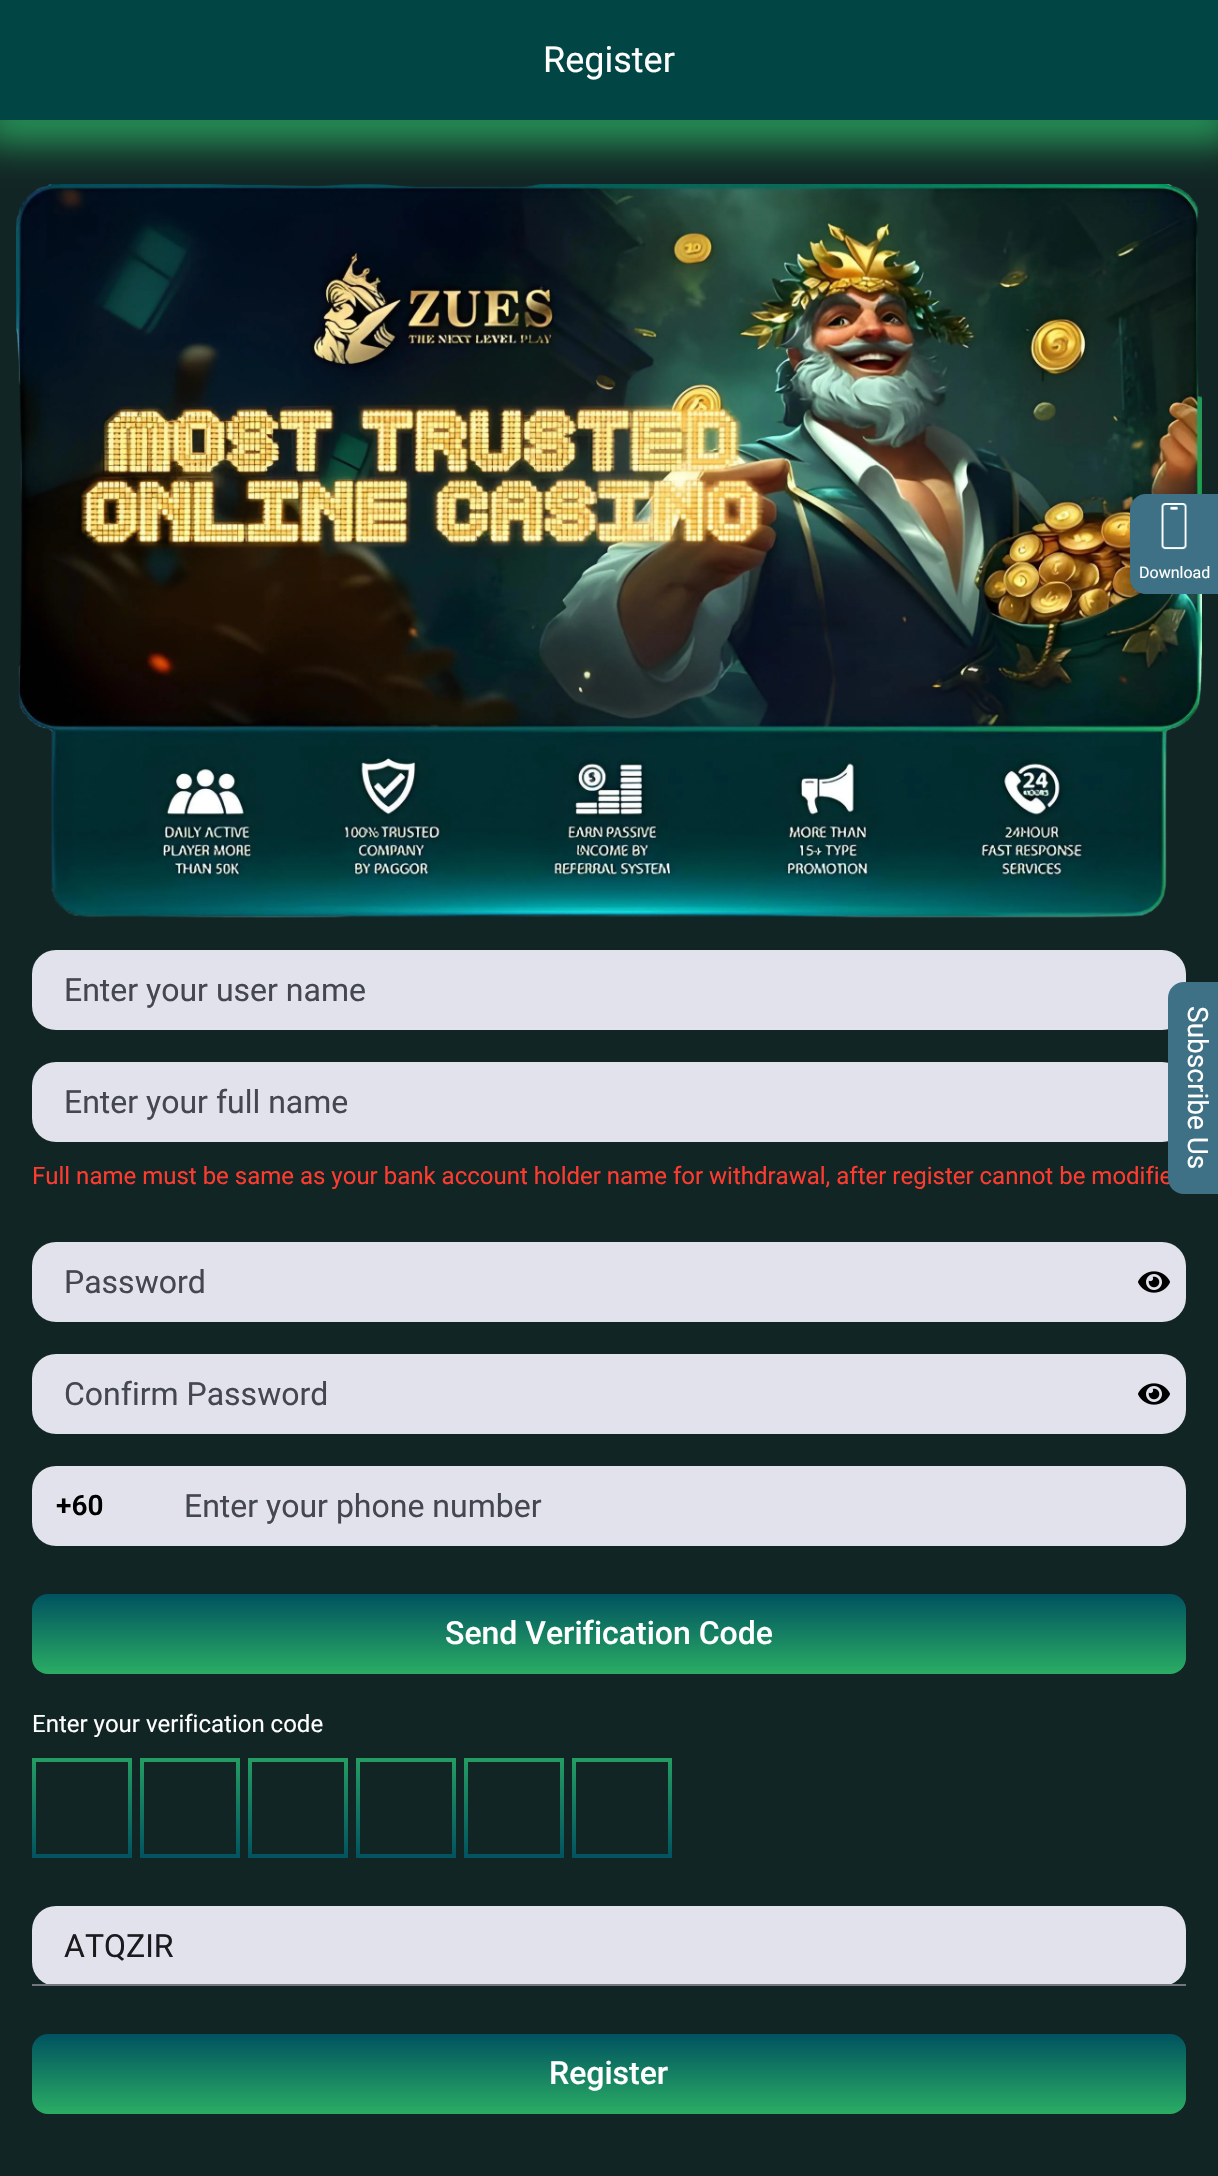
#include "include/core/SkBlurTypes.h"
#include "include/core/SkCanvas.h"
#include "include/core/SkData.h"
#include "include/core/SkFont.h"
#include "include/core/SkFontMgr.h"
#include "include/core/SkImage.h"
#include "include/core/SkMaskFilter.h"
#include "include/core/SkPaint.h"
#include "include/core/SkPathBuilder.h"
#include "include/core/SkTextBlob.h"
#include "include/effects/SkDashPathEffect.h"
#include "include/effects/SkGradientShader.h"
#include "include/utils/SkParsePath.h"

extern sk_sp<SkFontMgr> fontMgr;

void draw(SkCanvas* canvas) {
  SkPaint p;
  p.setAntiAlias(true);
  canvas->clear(SkColorSetRGB(17, 37, 36));
  canvas->drawImageRect(SkImages::DeferredFromEncodedData(SkData::MakeFromFileName("images/2.png")), SkRect::MakeLTRB(16, 184, 1202, 918), SkSamplingOptions());
  p.setColor(SkColorSetRGB(43, 173, 100));
  p.setMaskFilter(SkMaskFilter::MakeBlur(kNormal_SkBlurStyle, 20));
  canvas->drawRect(SkRect::MakeLTRB(-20, 100, 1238, 140), p);
  p.setMaskFilter(nullptr);
  p.setColor(SkColorSetRGB(1, 69, 69));
  canvas->drawRect(SkRect::MakeLTRB(0, 0, 1218, 120), p);
  p.setColor(SkColorSetRGB(62, 113, 133));
  canvas->drawPath(SkPathBuilder().moveTo(1146, 494).lineTo(1218, 494).lineTo(1218, 594).lineTo(1146, 594).cubicTo(1137, 594, 1130, 587, 1130, 578).lineTo(1130, 510).cubicTo(1130, 501, 1137, 494, 1146, 494).close().detach(), p);
  canvas->drawImageRect(SkImages::DeferredFromEncodedData(SkData::MakeFromFileName("images/1.png")), SkRect::MakeLTRB(1161, 503, 1187, 550), SkSamplingOptions());
  p.setColor(SkColorSetRGB(225, 226, 236));
  canvas->drawRoundRect(SkRect::MakeLTRB(32, 950, 1186, 1030), 24, 24, p);
  canvas->drawRoundRect(SkRect::MakeLTRB(32, 1062, 1186, 1142), 24, 24, p);
  canvas->drawRoundRect(SkRect::MakeLTRB(32, 1242, 1186, 1322), 24, 24, p);
  canvas->drawImageRect(SkImages::DeferredFromEncodedData(SkData::MakeFromFileName("images/3.png")), SkRect::MakeLTRB(1138, 1271, 1170, 1293), SkSamplingOptions());
  canvas->drawRoundRect(SkRect::MakeLTRB(32, 1354, 1186, 1434), 24, 24, p);
  canvas->drawImageRect(SkImages::DeferredFromEncodedData(SkData::MakeFromFileName("images/3.png")), SkRect::MakeLTRB(1138, 1383, 1170, 1405), SkSamplingOptions());
  canvas->drawRoundRect(SkRect::MakeLTRB(32, 1466, 1186, 1546), 24, 24, p);
  {
    const SkColor colors[] = {SkColorSetRGB(0, 82, 96), SkColorSetRGB(43, 173, 100)};
    const float stops[] = {0, 1};
    const SkPoint ends[] = {{609, 1594}, {609, 1674}};
    p.setShader(SkGradientShader::MakeLinear(ends, colors, stops, 2, SkTileMode::kClamp));
    p.setAlpha(255);
  }
  canvas->drawRoundRect(SkRect::MakeLTRB(32, 1594, 1186, 1674), 16, 16, p);
  canvas->drawImageRect(SkImages::DeferredFromEncodedData(SkData::MakeFromFileName("images/4.png")), SkRect::MakeLTRB(32, 1758, 132, 1858), SkSamplingOptions());
  canvas->drawImageRect(SkImages::DeferredFromEncodedData(SkData::MakeFromFileName("images/5.png")), SkRect::MakeLTRB(140, 1758, 240, 1858), SkSamplingOptions());
  canvas->drawImageRect(SkImages::DeferredFromEncodedData(SkData::MakeFromFileName("images/6.png")), SkRect::MakeLTRB(248, 1758, 348, 1858), SkSamplingOptions());
  canvas->drawImageRect(SkImages::DeferredFromEncodedData(SkData::MakeFromFileName("images/7.png")), SkRect::MakeLTRB(356, 1758, 456, 1858), SkSamplingOptions());
  canvas->drawImageRect(SkImages::DeferredFromEncodedData(SkData::MakeFromFileName("images/8.png")), SkRect::MakeLTRB(464, 1758, 564, 1858), SkSamplingOptions());
  canvas->drawImageRect(SkImages::DeferredFromEncodedData(SkData::MakeFromFileName("images/4.png")), SkRect::MakeLTRB(572, 1758, 672, 1858), SkSamplingOptions());
  p.setShader(nullptr);
  p.setColor(SkColorSetRGB(225, 226, 236));
  canvas->drawRoundRect(SkRect::MakeLTRB(32, 1906, 1186, 1986), 24, 24, p);
  p.setColor(SkColorSetRGB(116, 119, 127));
  canvas->drawRect(SkRect::MakeLTRB(32, 1984, 1186, 1986), p);
  {
    const SkColor colors[] = {SkColorSetRGB(0, 82, 96), SkColorSetRGB(43, 173, 100)};
    const float stops[] = {0, 1};
    const SkPoint ends[] = {{609, 2034}, {609, 2114}};
    p.setShader(SkGradientShader::MakeLinear(ends, colors, stops, 2, SkTileMode::kClamp));
    p.setAlpha(255);
  }
  canvas->drawRoundRect(SkRect::MakeLTRB(32, 2034, 1186, 2114), 16, 16, p);
  SkFont font1(fontMgr->matchFamilyStyle("Roboto", SkFontStyle::Normal()), 36);
  font1.setSubpixel(true);
  p.setShader(nullptr);
  p.setColor(SK_ColorWHITE);
  canvas->drawString("Register", 543, 72, font1, p);
  SkFont font2(fontMgr->matchFamilyStyle("Roboto", SkFontStyle::Normal()), 16);
  font2.setSubpixel(true);
  canvas->drawString("Download", 1139, 578, font2, p);
  SkFont font3(fontMgr->matchFamilyStyle("Roboto", SkFontStyle::Normal()), 32);
  font3.setSubpixel(true);
  p.setColor(SkColorSetRGB(68, 71, 79));
  canvas->drawString("Enter your user name", 64, 1001, font3, p);
  canvas->drawString("Enter your full name", 64, 1113, font3, p);
  SkFont font4(fontMgr->matchFamilyStyle("Roboto", SkFontStyle::Normal()), 24);
  font4.setSubpixel(true);
  p.setColor(SkColorSetRGB(255, 59, 48));
  canvas->drawString("Full name must be same as your bank account holder name for withdrawal, after register cannot be modifie", 32, 1184, font4, p);
  p.setColor(SkColorSetRGB(68, 71, 79));
  canvas->drawString("Password", 64, 1293, font3, p);
  canvas->drawString("Confirm Password", 64, 1405, font3, p);
  SkFont font5(fontMgr->matchFamilyStyle("Roboto", SkFontStyle(600, SkFontStyle::kNormal_Width, SkFontStyle::kUpright_Slant)), 28);
  font5.setSubpixel(true);
  p.setColor(SK_ColorBLACK);
  canvas->drawString("+60", 56, 1515, font5, p);
  p.setColor(SkColorSetRGB(68, 71, 79));
  canvas->drawString("Enter your phone number", 184, 1517, font3, p);
  SkFont font6(fontMgr->matchFamilyStyle("Roboto", SkFontStyle(500, SkFontStyle::kNormal_Width, SkFontStyle::kUpright_Slant)), 32);
  font6.setSubpixel(true);
  p.setColor(SK_ColorWHITE);
  canvas->drawString("Send Verification Code", 445, 1644, font6, p);
  canvas->drawString("Enter your verification code", 32, 1732, font4, p);
  p.setColor(SkColorSetRGB(27, 27, 31));
  canvas->drawString("ATQZIR", 64, 1957, font3, p);
  p.setColor(SK_ColorWHITE);
  canvas->drawString("Register", 549, 2084, font6, p);
  p.setColor(SkColorSetRGB(62, 113, 133));
  canvas->drawPath(SkPathBuilder().moveTo(1184, 982).lineTo(1218, 982).lineTo(1218, 1194).lineTo(1184, 1194).cubicTo(1175, 1194, 1168, 1187, 1168, 1178).lineTo(1168, 998).cubicTo(1168, 989, 1175, 982, 1184, 982).close().detach(), p);
  SkFont font7(fontMgr->matchFamilyStyle("Roboto", SkFontStyle::Normal()), 28);
  font7.setSubpixel(true);
  p.setColor(SK_ColorWHITE);
  canvas->save();
  canvas->rotate(90, 1188, 1006);
  canvas->drawString("Subscribe Us", 1188, 1006, font7, p);
  canvas->restore();
}
